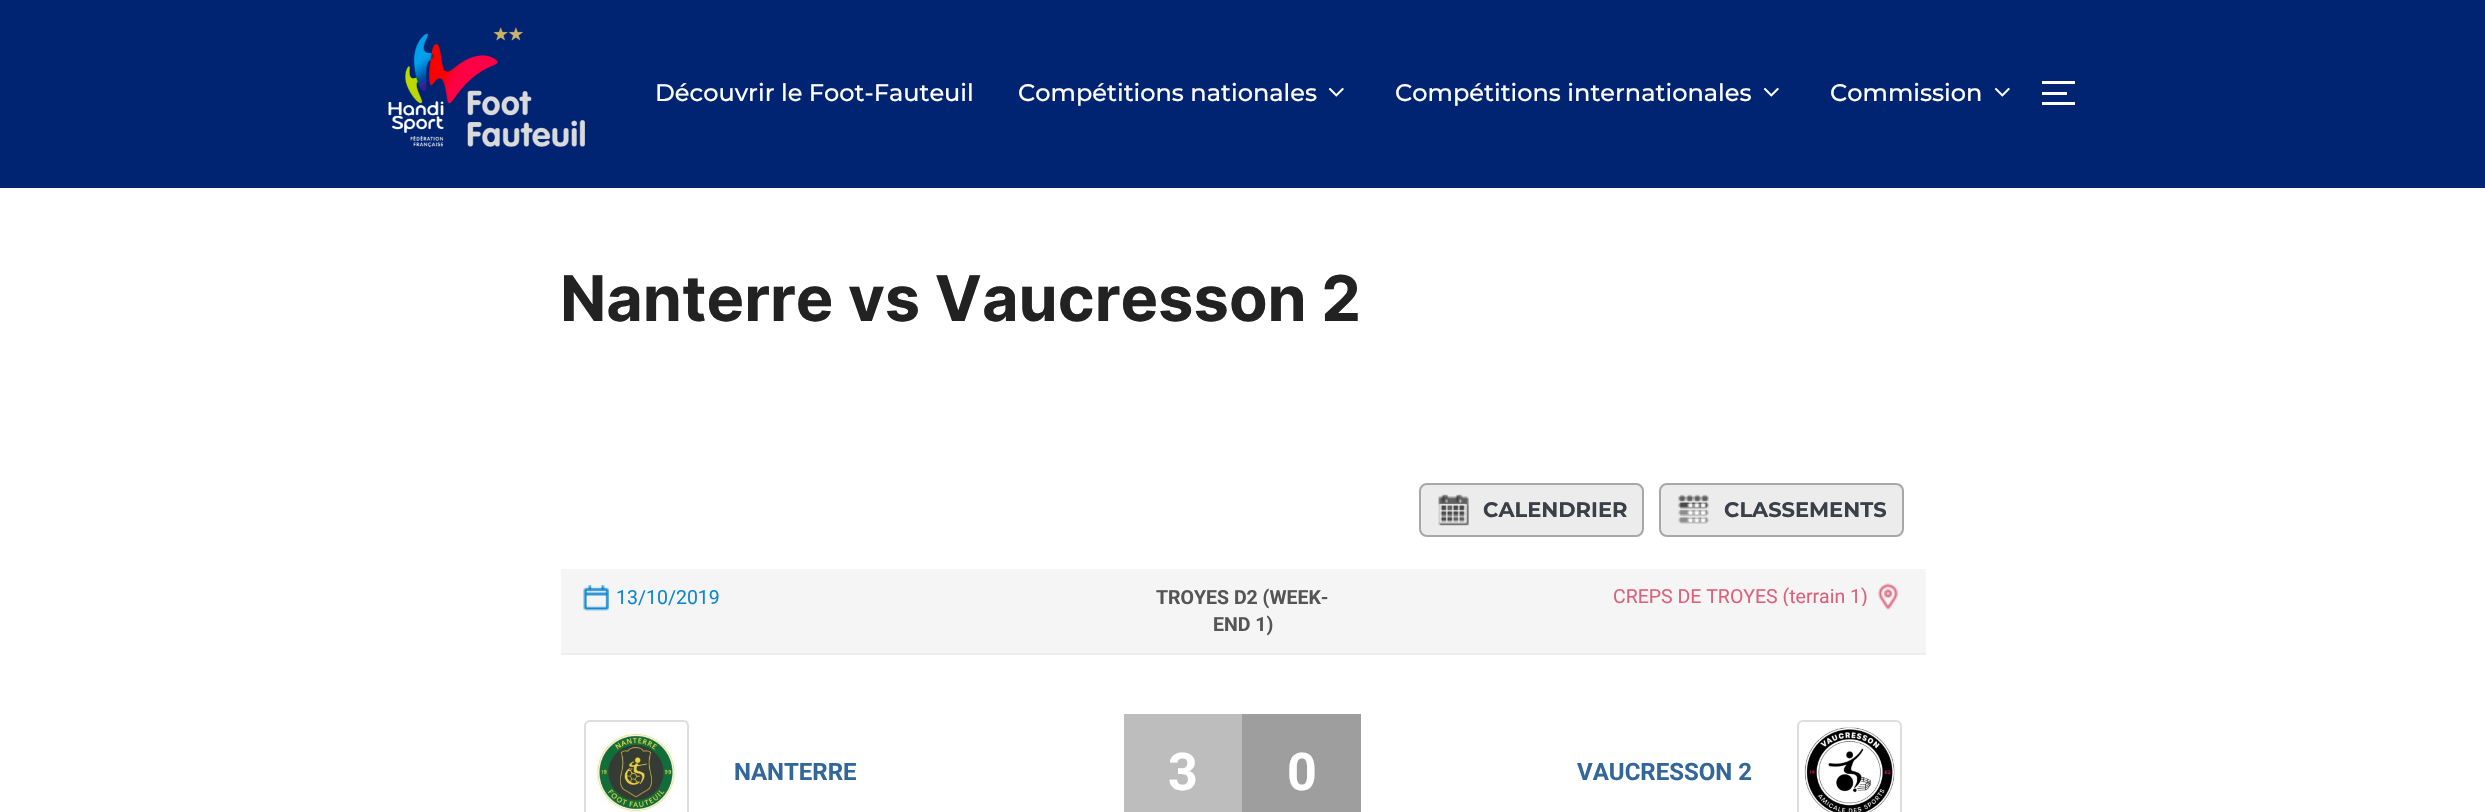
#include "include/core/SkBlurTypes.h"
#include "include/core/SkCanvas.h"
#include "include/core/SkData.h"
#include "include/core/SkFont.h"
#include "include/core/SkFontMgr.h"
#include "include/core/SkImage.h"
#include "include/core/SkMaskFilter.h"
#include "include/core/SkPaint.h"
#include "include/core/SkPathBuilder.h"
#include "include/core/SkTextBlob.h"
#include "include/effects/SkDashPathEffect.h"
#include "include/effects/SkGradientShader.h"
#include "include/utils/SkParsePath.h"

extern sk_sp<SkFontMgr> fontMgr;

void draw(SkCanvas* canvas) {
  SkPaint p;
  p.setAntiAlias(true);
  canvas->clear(SK_ColorWHITE);
  p.setColor(SkColorSetRGB(0, 36, 114));
  canvas->drawRect(SkRect::MakeLTRB(0, 0, 2485, 188), p);
  canvas->drawImageRect(SkImages::DeferredFromEncodedData(SkData::MakeFromFileName("images/1.png")), SkRect::MakeLTRB(388, 27, 585, 147), SkSamplingOptions());
  canvas->drawImageRect(SkImages::DeferredFromEncodedData(SkData::MakeFromFileName("images/2.png")), SkRect::MakeLTRB(1328, 87, 1344, 97), SkSamplingOptions());
  canvas->drawImageRect(SkImages::DeferredFromEncodedData(SkData::MakeFromFileName("images/2.png")), SkRect::MakeLTRB(1763, 87, 1779, 97), SkSamplingOptions());
  canvas->drawImageRect(SkImages::DeferredFromEncodedData(SkData::MakeFromFileName("images/2.png")), SkRect::MakeLTRB(1994, 87, 2010, 97), SkSamplingOptions());
  p.setColor(SK_ColorWHITE);
  canvas->drawRect(SkRect::MakeLTRB(2042, 81, 2075, 84), p);
  canvas->drawRect(SkRect::MakeLTRB(2042, 92, 2067, 95), p);
  canvas->drawRect(SkRect::MakeLTRB(2042, 102, 2075, 105), p);
  p.setColor(SkColorSetRGB(236, 236, 236));
  canvas->drawRoundRect(SkRect::MakeLTRB(1420, 484, 1643, 536), 7, 7, p);
  p.setStyle(SkPaint::kStroke_Style);
  p.setStrokeWidth(2);
  p.setColor(SkColorSetRGB(167, 167, 167));
  canvas->drawRoundRect(SkRect::MakeLTRB(1420, 484, 1643, 536), 7, 7, p);
  canvas->drawImageRect(SkImages::DeferredFromEncodedData(SkData::MakeFromFileName("images/3.png")), SkRect::MakeLTRB(1438, 494, 1469, 526), SkSamplingOptions());
  p.setStyle(SkPaint::kFill_Style);
  p.setColor(SkColorSetRGB(236, 236, 236));
  canvas->drawRoundRect(SkRect::MakeLTRB(1660, 484, 1903, 536), 7, 7, p);
  p.setStyle(SkPaint::kStroke_Style);
  p.setColor(SkColorSetRGB(167, 167, 167));
  canvas->drawRoundRect(SkRect::MakeLTRB(1660, 484, 1903, 536), 7, 7, p);
  canvas->drawImageRect(SkImages::DeferredFromEncodedData(SkData::MakeFromFileName("images/4.png")), SkRect::MakeLTRB(1678, 494, 1709, 524), SkSamplingOptions());
  p.setStyle(SkPaint::kFill_Style);
  p.setColor(SkColorSetRGB(245, 245, 245));
  canvas->drawRect(SkRect::MakeLTRB(561, 569, 1926, 653), p);
  p.setColor(SkColorSetRGB(238, 238, 238));
  canvas->drawRect(SkRect::MakeLTRB(561, 653, 1926, 655), p);
  canvas->drawImageRect(SkImages::DeferredFromEncodedData(SkData::MakeFromFileName("images/5.png")), SkRect::MakeLTRB(583, 585, 609, 611), SkSamplingOptions());
  canvas->drawImageRect(SkImages::DeferredFromEncodedData(SkData::MakeFromFileName("images/6.png")), SkRect::MakeLTRB(1877, 583, 1898, 610), SkSamplingOptions());
  p.setStyle(SkPaint::kStroke_Style);
  p.setColor(SkColorSetRGB(221, 221, 221));
  canvas->drawRoundRect(SkRect::MakeLTRB(585, 721, 688, 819), 5, 5, p);
  canvas->drawImageRect(SkImages::DeferredFromEncodedData(SkData::MakeFromFileName("images/7.png")), SkRect::MakeLTRB(591, 728, 678, 812), SkSamplingOptions());
  p.setStyle(SkPaint::kFill_Style);
  p.setColor(SkColorSetRGB(189, 189, 189));
  canvas->drawRect(SkRect::MakeLTRB(1124, 714, 1242, 812), p);
  p.setColor(SkColorSetRGB(158, 158, 158));
  canvas->drawRect(SkRect::MakeLTRB(1242, 714, 1361, 812), p);
  p.setStyle(SkPaint::kStroke_Style);
  p.setColor(SkColorSetRGB(221, 221, 221));
  canvas->drawRoundRect(SkRect::MakeLTRB(1798, 721, 1901, 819), 5, 5, p);
  canvas->drawImageRect(SkImages::DeferredFromEncodedData(SkData::MakeFromFileName("images/8.png")), SkRect::MakeLTRB(1804, 727, 1895, 812), SkSamplingOptions());
  SkFont font1(fontMgr->matchFamilyStyle("Montserrat", SkFontStyle(500, SkFontStyle::kNormal_Width, SkFontStyle::kUpright_Slant)), 24);
  font1.setSubpixel(true);
  p.setStyle(SkPaint::kFill_Style);
  p.setColor(SK_ColorWHITE);
  canvas->drawString("Découvrir le Foot-Fauteuil", 655, 101, font1, p);
  canvas->drawString("Compétitions nationales", 1018, 101, font1, p);
  canvas->drawString("Compétitions internationales", 1395, 101, font1, p);
  canvas->drawString("Commission", 1830, 101, font1, p);
  SkFont font2(fontMgr->matchFamilyStyle("Inter", SkFontStyle::Bold()), 63);
  font2.setSubpixel(true);
  p.setColor(SkColorSetRGB(34, 34, 34));
  canvas->drawString("Nanterre vs Vaucresson 2", 560, 321, font2, p);
  SkFont font3(fontMgr->matchFamilyStyle("Montserrat", SkFontStyle::Bold()), 21);
  font3.setSubpixel(true);
  p.setColor(SkColorSetRGB(58, 63, 72));
  canvas->drawString("CALENDRIER", 1483, 517, font3, p);
  canvas->drawString("CLASSEMENTS", 1724, 517, font3, p);
  SkFont font4(fontMgr->matchFamilyStyle("Roboto", SkFontStyle::Normal()), 19.5f);
  font4.setSubpixel(true);
  p.setColor(SkColorSetRGB(15, 135, 207));
  canvas->drawString("13/10/2019", 616, 604, font4, p);
  SkFont font5(fontMgr->matchFamilyStyle("Roboto", SkFontStyle::Bold()), 19.5f);
  font5.setSubpixel(true);
  p.setColor(SkColorSetRGB(85, 85, 85));
  canvas->drawString("TROYES D2 (WEEK-", 1156, 604, font5, p);
  canvas->drawString("END 1)", 1213, 631, font5, p);
  canvas->save();
  canvas->clipRect(SkRect::MakeLTRB(1353, 587, 1868, 606));
  p.setColor(SkColorSetRGB(220, 97, 123));
  canvas->drawString("CREPS DE TROYES (terrain 1)", 1613, 603, font4, p);
  canvas->restore();
  SkFont font6(fontMgr->matchFamilyStyle("Roboto", SkFontStyle::Bold()), 24);
  font6.setSubpixel(true);
  p.setColor(SkColorSetRGB(51, 102, 153));
  canvas->drawString("NANTERRE", 734, 780, font6, p);
  SkFont font7(fontMgr->matchFamilyStyle("Roboto", SkFontStyle::Bold()), 52);
  font7.setSubpixel(true);
  p.setColor(SK_ColorWHITE);
  canvas->drawString("3", 1168, 790, font7, p);
  canvas->drawString("0", 1287, 790, font7, p);
  p.setColor(SkColorSetRGB(51, 102, 153));
  canvas->drawString("VAUCRESSON 2", 1577, 780, font6, p);
}
